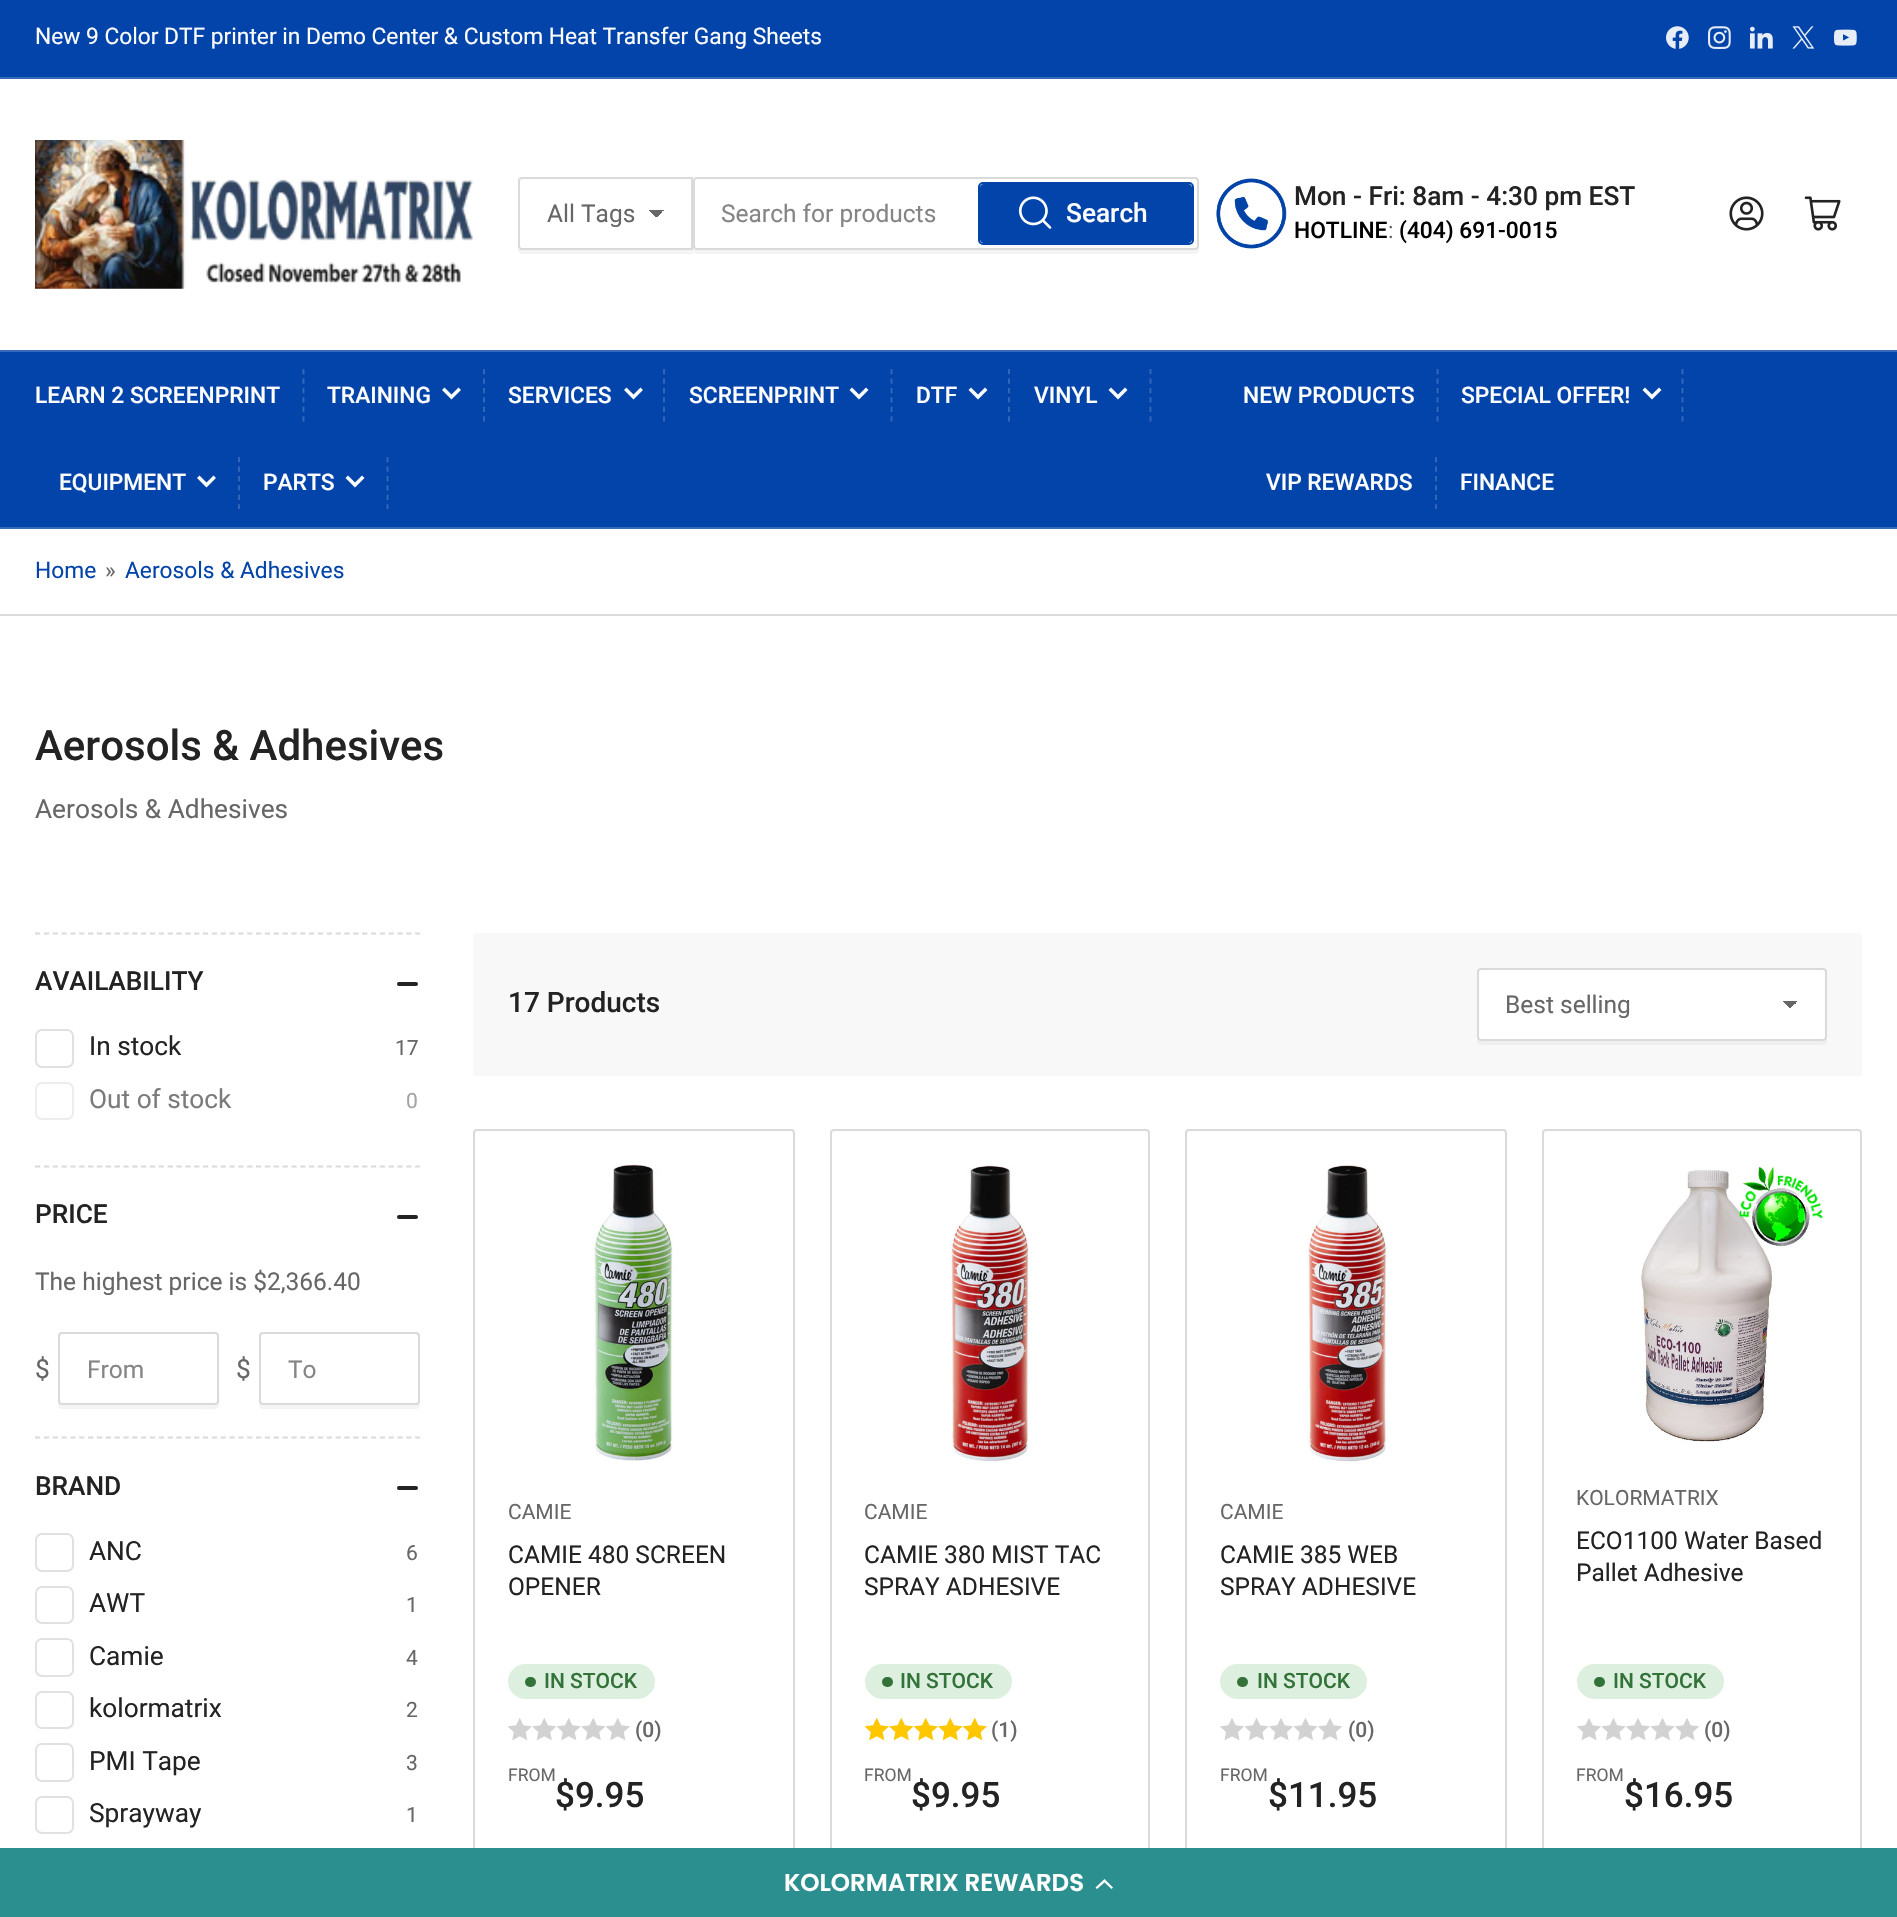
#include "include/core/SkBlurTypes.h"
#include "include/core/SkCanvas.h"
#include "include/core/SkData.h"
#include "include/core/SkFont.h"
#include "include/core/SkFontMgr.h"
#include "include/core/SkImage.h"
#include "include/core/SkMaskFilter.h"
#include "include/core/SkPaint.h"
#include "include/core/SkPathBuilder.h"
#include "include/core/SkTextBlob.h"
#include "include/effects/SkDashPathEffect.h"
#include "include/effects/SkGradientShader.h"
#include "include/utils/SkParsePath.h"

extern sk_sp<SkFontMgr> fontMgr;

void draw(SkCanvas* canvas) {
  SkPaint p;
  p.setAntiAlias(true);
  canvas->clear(SK_ColorWHITE);
  p.setColor(SkColorSetRGB(2, 68, 169));
  canvas->drawRect(SkRect::MakeLTRB(0, 0, 1897, 77), p);
  p.setColor(SkColorSetRGB(53, 105, 186));
  canvas->drawRect(SkRect::MakeLTRB(0, 77, 1897, 79), p);
  canvas->drawImageRect(SkImages::DeferredFromEncodedData(SkData::MakeFromFileName("images/1.png")), SkRect::MakeLTRB(1666, 26, 1689, 49), SkSamplingOptions());
  canvas->drawImageRect(SkImages::DeferredFromEncodedData(SkData::MakeFromFileName("images/2.png")), SkRect::MakeLTRB(1708, 26, 1731, 49), SkSamplingOptions());
  canvas->drawImageRect(SkImages::DeferredFromEncodedData(SkData::MakeFromFileName("images/3.png")), SkRect::MakeLTRB(1750, 26, 1773, 49), SkSamplingOptions());
  canvas->drawImageRect(SkImages::DeferredFromEncodedData(SkData::MakeFromFileName("images/4.png")), SkRect::MakeLTRB(1792, 26, 1815, 49), SkSamplingOptions());
  canvas->drawImageRect(SkImages::DeferredFromEncodedData(SkData::MakeFromFileName("images/5.png")), SkRect::MakeLTRB(1834, 29, 1857, 46), SkSamplingOptions());
  canvas->drawImageRect(SkImages::DeferredFromEncodedData(SkData::MakeFromFileName("images/6.png")), SkRect::MakeLTRB(35, 140, 473, 289), SkSamplingOptions());
  p.setStyle(SkPaint::kStroke_Style);
  p.setStrokeWidth(2);
  p.setColor(SkColorSetRGB(218, 218, 218));
  canvas->drawRoundRect(SkRect::MakeLTRB(519, 178, 692, 249), 3, 3, p);
  p.setStyle(SkPaint::kFill_Style);
  p.setColor(SkColorSetARGB(77, 218, 218, 218));
  canvas->drawPath(SkPathBuilder().moveTo(518, 247).lineTo(518, 250).cubicTo(518, 252, 520, 254, 522, 254).lineTo(693, 254).lineTo(693, 250).lineTo(522, 250).cubicTo(520, 250, 518, 249, 518, 247).close().detach(), p);
  p.setColor(SK_ColorWHITE);
  canvas->drawPath(SkPathBuilder().moveTo(522, 177).lineTo(693, 177).lineTo(693, 250).lineTo(522, 250).cubicTo(520, 250, 518, 248, 518, 246).lineTo(518, 181).cubicTo(518, 179, 520, 177, 522, 177).close().detach(), p);
  {
    const SkColor colors[] = {SkColorSetRGB(103, 103, 103), SK_ColorWHITE};
    const float stops[] = {0.5f, 0.5f};
    const SkPoint ends[] = {{656, 209}, {665, 218}};
    p.setShader(SkGradientShader::MakeLinear(ends, colors, stops, 2, SkTileMode::kClamp));
    p.setAlpha(255);
  }
  canvas->drawRect(SkRect::MakeLTRB(656, 210, 664, 217), p);
  {
    const SkColor colors[] = {SK_ColorWHITE, SkColorSetRGB(103, 103, 103)};
    const float stops[] = {0.5f, 0.5f};
    const SkPoint ends[] = {{648, 218}, {656, 209}};
    p.setShader(SkGradientShader::MakeLinear(ends, colors, stops, 2, SkTileMode::kClamp));
    p.setAlpha(255);
  }
  canvas->drawRect(SkRect::MakeLTRB(649, 210, 656, 219), p);
  p.setStyle(SkPaint::kStroke_Style);
  p.setShader(nullptr);
  p.setColor(SkColorSetRGB(218, 218, 218));
  canvas->drawPath(SkPathBuilder().moveTo(522, 178).lineTo(692, 178).lineTo(692, 249).lineTo(522, 249).cubicTo(520.5f, 249, 519, 247.5f, 519, 246).lineTo(519, 181).cubicTo(519, 179.5f, 520.5f, 178, 522, 178).close().detach(), p);
  p.setStyle(SkPaint::kFill_Style);
  p.setColor(SkColorSetRGB(244, 244, 244));
  canvas->drawPath(SkPathBuilder().moveTo(693, 247).lineTo(693, 250).cubicTo(693, 252, 695, 254, 697, 254).lineTo(1195, 254).cubicTo(1197, 254, 1199, 252, 1199, 250).lineTo(1199, 183).lineTo(1199, 247).cubicTo(1199, 249, 1197, 250, 1195, 250).lineTo(696, 250).cubicTo(695, 250, 693, 249, 693, 247).close().detach(), p);
  p.setStyle(SkPaint::kStroke_Style);
  p.setColor(SkColorSetRGB(218, 218, 218));
  canvas->drawRoundRect(SkRect::MakeLTRB(694, 178, 1198, 249), 3, 3, p);
  p.setColor(SkColorSetRGB(2, 68, 169));
  canvas->drawRoundRect(SkRect::MakeLTRB(979, 183, 1193, 244), 4, 4, p);
  p.setStyle(SkPaint::kFill_Style);
  canvas->drawRoundRect(SkRect::MakeLTRB(980, 184, 1192, 243), 4, 4, p);
  canvas->drawImageRect(SkImages::DeferredFromEncodedData(SkData::MakeFromFileName("images/7.png")), SkRect::MakeLTRB(1018, 196, 1052, 229), SkSamplingOptions());
  canvas->drawImageRect(SkImages::DeferredFromEncodedData(SkData::MakeFromFileName("images/8.png")), SkRect::MakeLTRB(1216, 178, 1287, 249), SkSamplingOptions());
  canvas->drawImageRect(SkImages::DeferredFromEncodedData(SkData::MakeFromFileName("images/9.png")), SkRect::MakeLTRB(1729, 196, 1764, 231), SkSamplingOptions());
  canvas->drawImageRect(SkImages::DeferredFromEncodedData(SkData::MakeFromFileName("images/10.png")), SkRect::MakeLTRB(1804, 196, 1841, 231), SkSamplingOptions());
  canvas->drawRect(SkRect::MakeLTRB(0, 352, 1897, 527), p);
  p.setColor(SkColorSetRGB(53, 105, 186));
  canvas->drawRect(SkRect::MakeLTRB(0, 350, 1897, 352), p);
  canvas->drawRect(SkRect::MakeLTRB(0, 527, 1897, 529), p);
  p.setStyle(SkPaint::kStroke_Style);
  p.setStrokeWidth(1.8f);
  p.setPathEffect(SkDashPathEffect::Make({{5.25f, 4.2f}}, 0));
  canvas->drawPath(SkPathBuilder().moveTo(303.5f, 369).lineTo(303.5f, 422).detach(), p);
  p.setPathEffect(nullptr);
  p.setStrokeWidth(3.5f);
  p.setStrokeCap(SkPaint::kSquare_Cap);
  p.setColor(SK_ColorWHITE);
  canvas->drawPath(SkPathBuilder().moveTo(458.5f, 390).lineTo(451.5f, 397).lineTo(444.5f, 390).detach(), p);
  p.setStrokeWidth(1.8f);
  p.setStrokeCap(SkPaint::kButt_Cap);
  p.setColor(SkColorSetRGB(53, 105, 186));
  p.setPathEffect(SkDashPathEffect::Make({{5.25f, 4.2f}}, 0));
  canvas->drawPath(SkPathBuilder().moveTo(484, 369).lineTo(484, 422).detach(), p);
  p.setPathEffect(nullptr);
  p.setStrokeWidth(3.5f);
  p.setStrokeCap(SkPaint::kSquare_Cap);
  p.setColor(SK_ColorWHITE);
  canvas->drawPath(SkPathBuilder().moveTo(640.5f, 390).lineTo(633.5f, 397).lineTo(626.5f, 390).detach(), p);
  p.setStrokeWidth(1.8f);
  p.setStrokeCap(SkPaint::kButt_Cap);
  p.setColor(SkColorSetRGB(53, 105, 186));
  p.setPathEffect(SkDashPathEffect::Make({{5.25f, 4.2f}}, 0));
  canvas->drawPath(SkPathBuilder().moveTo(664, 369).lineTo(664, 422).detach(), p);
  p.setPathEffect(nullptr);
  p.setStrokeWidth(3.5f);
  p.setStrokeCap(SkPaint::kSquare_Cap);
  p.setColor(SK_ColorWHITE);
  canvas->drawPath(SkPathBuilder().moveTo(866, 390).lineTo(859, 397).lineTo(852, 390).detach(), p);
  p.setStrokeWidth(1.8f);
  p.setStrokeCap(SkPaint::kButt_Cap);
  p.setColor(SkColorSetRGB(53, 105, 186));
  p.setPathEffect(SkDashPathEffect::Make({{5.25f, 4.2f}}, 0));
  canvas->drawPath(SkPathBuilder().moveTo(891.5f, 369).lineTo(891.5f, 422).detach(), p);
  p.setPathEffect(nullptr);
  p.setStrokeWidth(3.5f);
  p.setStrokeCap(SkPaint::kSquare_Cap);
  p.setColor(SK_ColorWHITE);
  canvas->drawPath(SkPathBuilder().moveTo(985, 390).lineTo(978, 397).lineTo(971, 390).detach(), p);
  p.setStrokeWidth(1.8f);
  p.setStrokeCap(SkPaint::kButt_Cap);
  p.setColor(SkColorSetRGB(53, 105, 186));
  p.setPathEffect(SkDashPathEffect::Make({{5.25f, 4.2f}}, 0));
  canvas->drawPath(SkPathBuilder().moveTo(1009, 369).lineTo(1009, 422).detach(), p);
  p.setPathEffect(nullptr);
  p.setStrokeWidth(3.5f);
  p.setStrokeCap(SkPaint::kSquare_Cap);
  p.setColor(SK_ColorWHITE);
  canvas->drawPath(SkPathBuilder().moveTo(1125, 390).lineTo(1118, 397).lineTo(1111, 390).detach(), p);
  p.setStrokeWidth(1.8f);
  p.setStrokeCap(SkPaint::kButt_Cap);
  p.setColor(SkColorSetRGB(53, 105, 186));
  p.setPathEffect(SkDashPathEffect::Make({{5.25f, 4.2f}}, 0));
  canvas->drawPath(SkPathBuilder().moveTo(1150.5f, 369).lineTo(1150.5f, 422).detach(), p);
  p.setPathEffect(nullptr);
  p.setStrokeWidth(3.5f);
  p.setStrokeCap(SkPaint::kSquare_Cap);
  p.setColor(SK_ColorWHITE);
  canvas->drawPath(SkPathBuilder().moveTo(213.5f, 478).lineTo(206.5f, 485).lineTo(199.5f, 478).detach(), p);
  p.setStrokeWidth(1.8f);
  p.setStrokeCap(SkPaint::kButt_Cap);
  p.setColor(SkColorSetRGB(53, 105, 186));
  p.setPathEffect(SkDashPathEffect::Make({{5.25f, 4.2f}}, 0));
  canvas->drawPath(SkPathBuilder().moveTo(239, 457).lineTo(239, 509).detach(), p);
  p.setPathEffect(nullptr);
  p.setStrokeWidth(3.5f);
  p.setStrokeCap(SkPaint::kSquare_Cap);
  p.setColor(SK_ColorWHITE);
  canvas->drawPath(SkPathBuilder().moveTo(362, 478).lineTo(355, 485).lineTo(348, 478).detach(), p);
  p.setStrokeWidth(1.8f);
  p.setStrokeCap(SkPaint::kButt_Cap);
  p.setColor(SkColorSetRGB(53, 105, 186));
  p.setPathEffect(SkDashPathEffect::Make({{5.25f, 4.2f}}, 0));
  canvas->drawPath(SkPathBuilder().moveTo(387.5f, 457).lineTo(387.5f, 509).detach(), p);
  p.setPathEffect(nullptr);
  p.setPathEffect(SkDashPathEffect::Make({{5.25f, 4.2f}}, 0));
  canvas->drawPath(SkPathBuilder().moveTo(1437.5f, 369).lineTo(1437.5f, 422).detach(), p);
  p.setPathEffect(nullptr);
  p.setStrokeWidth(3.5f);
  p.setStrokeCap(SkPaint::kSquare_Cap);
  p.setColor(SK_ColorWHITE);
  canvas->drawPath(SkPathBuilder().moveTo(1659, 390).lineTo(1652, 397).lineTo(1645, 390).detach(), p);
  p.setStrokeWidth(1.8f);
  p.setStrokeCap(SkPaint::kButt_Cap);
  p.setColor(SkColorSetRGB(53, 105, 186));
  p.setPathEffect(SkDashPathEffect::Make({{5.25f, 4.2f}}, 0));
  canvas->drawPath(SkPathBuilder().moveTo(1682.5f, 369).lineTo(1682.5f, 422).detach(), p);
  p.setPathEffect(nullptr);
  p.setPathEffect(SkDashPathEffect::Make({{5.25f, 4.2f}}, 0));
  canvas->drawPath(SkPathBuilder().moveTo(1436, 457).lineTo(1436, 509).detach(), p);
  p.setPathEffect(nullptr);
  p.setStyle(SkPaint::kFill_Style);
  p.setColor(SkColorSetRGB(218, 218, 218));
  canvas->drawRect(SkRect::MakeLTRB(0, 614, 1897, 616), p);
  p.setStyle(SkPaint::kStroke_Style);
  p.setPathEffect(SkDashPathEffect::Make({{5.25f, 3.59f}}, 0));
  canvas->drawPath(SkPathBuilder().moveTo(35, 933.5f).lineTo(420, 933.5f).detach(), p);
  p.setPathEffect(nullptr);
  p.setPathEffect(SkDashPathEffect::Make({{5.25f, 3.59f}}, 0));
  canvas->drawPath(SkPathBuilder().moveTo(35, 1166.5f).lineTo(420, 1166.5f).detach(), p);
  p.setPathEffect(nullptr);
  p.setStyle(SkPaint::kFill_Style);
  p.setColor(SkColorSetRGB(35, 35, 35));
  canvas->drawRoundRect(SkRect::MakeLTRB(397, 982, 410, 986), 2, 2, p);
  canvas->drawRoundRect(SkRect::MakeLTRB(404, 982, 418, 986), 2, 2, p);
  p.setStyle(SkPaint::kStroke_Style);
  p.setStrokeWidth(2);
  p.setColor(SkColorSetRGB(225, 225, 225));
  canvas->drawRoundRect(SkRect::MakeLTRB(36, 1030, 73, 1067), 6, 6, p);
  p.setColor(SkColorSetRGB(237, 237, 237));
  canvas->drawRoundRect(SkRect::MakeLTRB(36, 1083, 73, 1119), 6, 6, p);
  p.setStrokeWidth(1.8f);
  p.setColor(SkColorSetRGB(218, 218, 218));
  p.setPathEffect(SkDashPathEffect::Make({{5.25f, 3.59f}}, 0));
  canvas->drawPath(SkPathBuilder().moveTo(35, 1437.5f).lineTo(420, 1437.5f).detach(), p);
  p.setPathEffect(nullptr);
  p.setStyle(SkPaint::kFill_Style);
  p.setColor(SkColorSetRGB(35, 35, 35));
  canvas->drawRoundRect(SkRect::MakeLTRB(397, 1215, 410, 1219), 2, 2, p);
  canvas->drawRoundRect(SkRect::MakeLTRB(404, 1215, 418, 1219), 2, 2, p);
  p.setColor(SkColorSetRGB(244, 244, 244));
  canvas->drawPath(SkPathBuilder().moveTo(58, 1403).cubicTo(58, 1406, 58, 1409, 62, 1409).lineTo(190, 1409).cubicTo(225, 1409, 219, 1415, 219, 1383).lineTo(219, 1338).lineTo(219, 1402).cubicTo(219, 1404, 217, 1405, 215, 1405).lineTo(61, 1405).cubicTo(60, 1405, 59, 1404, 58, 1403).close().detach(), p);
  p.setStyle(SkPaint::kStroke_Style);
  p.setStrokeWidth(2);
  p.setColor(SkColorSetRGB(218, 218, 218));
  canvas->drawRoundRect(SkRect::MakeLTRB(59, 1333, 218, 1404), 3, 3, p);
  p.setStyle(SkPaint::kFill_Style);
  p.setColor(SkColorSetRGB(244, 244, 244));
  canvas->drawPath(SkPathBuilder().moveTo(259, 1402).lineTo(259, 1405).cubicTo(259, 1407, 261, 1409, 263, 1409).lineTo(416, 1409).cubicTo(418, 1409, 420, 1407, 420, 1405).lineTo(420, 1402).cubicTo(420, 1404, 418, 1405, 416, 1405).lineTo(262, 1405).cubicTo(261, 1405, 259, 1404, 259, 1402).close().detach(), p);
  p.setStyle(SkPaint::kStroke_Style);
  p.setColor(SkColorSetRGB(218, 218, 218));
  canvas->drawRoundRect(SkRect::MakeLTRB(260, 1333, 419, 1404), 3, 3, p);
  p.setStyle(SkPaint::kFill_Style);
  p.setColor(SkColorSetRGB(35, 35, 35));
  canvas->drawRoundRect(SkRect::MakeLTRB(397, 1486, 410, 1490), 2, 2, p);
  canvas->drawRoundRect(SkRect::MakeLTRB(404, 1486, 418, 1490), 2, 2, p);
  p.setStyle(SkPaint::kStroke_Style);
  p.setColor(SkColorSetRGB(225, 225, 225));
  canvas->drawRoundRect(SkRect::MakeLTRB(36, 1534, 73, 1571), 6, 6, p);
  canvas->drawRoundRect(SkRect::MakeLTRB(36, 1587, 73, 1623), 6, 6, p);
  canvas->drawRoundRect(SkRect::MakeLTRB(36, 1639, 73, 1676), 6, 6, p);
  canvas->drawRoundRect(SkRect::MakeLTRB(36, 1692, 73, 1728), 6, 6, p);
  canvas->drawRoundRect(SkRect::MakeLTRB(36, 1744, 73, 1781), 6, 6, p);
  canvas->drawRoundRect(SkRect::MakeLTRB(36, 1797, 73, 1833), 6, 6, p);
  p.setStyle(SkPaint::kFill_Style);
  p.setColor(SkColorSetRGB(248, 248, 248));
  canvas->drawRoundRect(SkRect::MakeLTRB(473, 933, 1862, 1076), 4, 4, p);
  p.setColor(SkColorSetRGB(239, 239, 239));
  canvas->drawPath(SkPathBuilder().moveTo(1477, 1038).lineTo(1477, 1041).cubicTo(1477, 1043, 1479, 1045, 1481, 1045).lineTo(1823, 1045).cubicTo(1825, 1045, 1827, 1043, 1827, 1041).lineTo(1827, 1038).cubicTo(1827, 1040, 1825, 1041, 1824, 1041).lineTo(1480, 1041).cubicTo(1479, 1041, 1477, 1040, 1477, 1038).close().detach(), p);
  p.setColor(SK_ColorWHITE);
  canvas->drawRoundRect(SkRect::MakeLTRB(1479, 970, 1825, 1040), 2, 2, p);
  {
    const SkColor colors[] = {SkColorSetRGB(103, 103, 103), SK_ColorWHITE};
    const float stops[] = {0.5f, 0.5f};
    const SkPoint ends[] = {{1790, 1000}, {1799, 1009}};
    p.setShader(SkGradientShader::MakeLinear(ends, colors, stops, 2, SkTileMode::kClamp));
    p.setAlpha(255);
  }
  canvas->drawRect(SkRect::MakeLTRB(1790, 1001, 1798, 1008), p);
  {
    const SkColor colors[] = {SK_ColorWHITE, SkColorSetRGB(103, 103, 103)};
    const float stops[] = {0.5f, 0.5f};
    const SkPoint ends[] = {{1782, 1009}, {1790, 1000}};
    p.setShader(SkGradientShader::MakeLinear(ends, colors, stops, 2, SkTileMode::kClamp));
    p.setAlpha(255);
  }
  canvas->drawRect(SkRect::MakeLTRB(1783, 1001, 1790, 1010), p);
  p.setStyle(SkPaint::kStroke_Style);
  p.setShader(nullptr);
  p.setColor(SkColorSetRGB(218, 218, 218));
  canvas->drawRoundRect(SkRect::MakeLTRB(1478, 969, 1826, 1040), 3, 3, p);
  canvas->drawRoundRect(SkRect::MakeLTRB(474, 1130, 794, 1858), 3, 3, p);
  canvas->drawImageRect(SkImages::DeferredFromEncodedData(SkData::MakeFromFileName("images/11.png")), SkRect::MakeLTRB(594, 1164, 673, 1461), SkSamplingOptions());
  p.setStyle(SkPaint::kFill_Style);
  p.setColor(SkColorSetRGB(221, 240, 223));
  canvas->drawRoundRect(SkRect::MakeLTRB(508, 1664, 655, 1699), 17.5f, 17.5f, p);
  p.setColor(SkColorSetRGB(51, 114, 57));
  canvas->drawRoundRect(SkRect::MakeLTRB(525, 1677, 536, 1687), 5, 5, p);
  canvas->drawImageRect(SkImages::DeferredFromEncodedData(SkData::MakeFromFileName("images/12.png")), SkRect::MakeLTRB(507, 1718, 532, 1741), SkSamplingOptions());
  canvas->drawImageRect(SkImages::DeferredFromEncodedData(SkData::MakeFromFileName("images/13.png")), SkRect::MakeLTRB(532, 1718, 557, 1741), SkSamplingOptions());
  canvas->drawImageRect(SkImages::DeferredFromEncodedData(SkData::MakeFromFileName("images/14.png")), SkRect::MakeLTRB(556, 1718, 581, 1741), SkSamplingOptions());
  canvas->drawImageRect(SkImages::DeferredFromEncodedData(SkData::MakeFromFileName("images/13.png")), SkRect::MakeLTRB(581, 1718, 606, 1741), SkSamplingOptions());
  canvas->drawImageRect(SkImages::DeferredFromEncodedData(SkData::MakeFromFileName("images/14.png")), SkRect::MakeLTRB(605, 1718, 630, 1741), SkSamplingOptions());
  p.setStyle(SkPaint::kStroke_Style);
  p.setColor(SkColorSetRGB(218, 218, 218));
  canvas->drawRoundRect(SkRect::MakeLTRB(831, 1130, 1149, 1858), 3, 3, p);
  canvas->drawImageRect(SkImages::DeferredFromEncodedData(SkData::MakeFromFileName("images/15.png")), SkRect::MakeLTRB(950, 1164, 1030, 1462), SkSamplingOptions());
  p.setStyle(SkPaint::kFill_Style);
  p.setColor(SkColorSetRGB(221, 240, 223));
  canvas->drawRoundRect(SkRect::MakeLTRB(865, 1664, 1012, 1699), 17.5f, 17.5f, p);
  p.setColor(SkColorSetRGB(51, 114, 57));
  canvas->drawRoundRect(SkRect::MakeLTRB(882, 1677, 893, 1687), 5, 5, p);
  canvas->drawImageRect(SkImages::DeferredFromEncodedData(SkData::MakeFromFileName("images/16.png")), SkRect::MakeLTRB(864, 1717, 889, 1741), SkSamplingOptions());
  canvas->drawImageRect(SkImages::DeferredFromEncodedData(SkData::MakeFromFileName("images/17.png")), SkRect::MakeLTRB(889, 1717, 914, 1741), SkSamplingOptions());
  canvas->drawImageRect(SkImages::DeferredFromEncodedData(SkData::MakeFromFileName("images/18.png")), SkRect::MakeLTRB(913, 1717, 938, 1741), SkSamplingOptions());
  canvas->drawImageRect(SkImages::DeferredFromEncodedData(SkData::MakeFromFileName("images/17.png")), SkRect::MakeLTRB(938, 1717, 963, 1741), SkSamplingOptions());
  canvas->drawImageRect(SkImages::DeferredFromEncodedData(SkData::MakeFromFileName("images/18.png")), SkRect::MakeLTRB(962, 1717, 987, 1741), SkSamplingOptions());
  p.setStyle(SkPaint::kStroke_Style);
  p.setColor(SkColorSetRGB(218, 218, 218));
  canvas->drawRoundRect(SkRect::MakeLTRB(1186, 1130, 1506, 1858), 3, 3, p);
  canvas->drawImageRect(SkImages::DeferredFromEncodedData(SkData::MakeFromFileName("images/19.png")), SkRect::MakeLTRB(1306, 1164, 1388, 1462), SkSamplingOptions());
  p.setStyle(SkPaint::kFill_Style);
  p.setColor(SkColorSetRGB(221, 240, 223));
  canvas->drawRoundRect(SkRect::MakeLTRB(1220, 1664, 1367, 1699), 17.5f, 17.5f, p);
  p.setColor(SkColorSetRGB(51, 114, 57));
  canvas->drawRoundRect(SkRect::MakeLTRB(1237, 1677, 1248, 1687), 5, 5, p);
  canvas->drawImageRect(SkImages::DeferredFromEncodedData(SkData::MakeFromFileName("images/20.png")), SkRect::MakeLTRB(1220, 1718, 1244, 1741), SkSamplingOptions());
  canvas->drawImageRect(SkImages::DeferredFromEncodedData(SkData::MakeFromFileName("images/21.png")), SkRect::MakeLTRB(1244, 1718, 1269, 1741), SkSamplingOptions());
  canvas->drawImageRect(SkImages::DeferredFromEncodedData(SkData::MakeFromFileName("images/20.png")), SkRect::MakeLTRB(1269, 1718, 1293, 1741), SkSamplingOptions());
  canvas->drawImageRect(SkImages::DeferredFromEncodedData(SkData::MakeFromFileName("images/21.png")), SkRect::MakeLTRB(1293, 1718, 1318, 1741), SkSamplingOptions());
  canvas->drawImageRect(SkImages::DeferredFromEncodedData(SkData::MakeFromFileName("images/20.png")), SkRect::MakeLTRB(1318, 1718, 1342, 1741), SkSamplingOptions());
  p.setStyle(SkPaint::kStroke_Style);
  p.setColor(SkColorSetRGB(218, 218, 218));
  canvas->drawRoundRect(SkRect::MakeLTRB(1543, 1130, 1861, 1858), 3, 3, p);
  canvas->drawImageRect(SkImages::DeferredFromEncodedData(SkData::MakeFromFileName("images/22.png")), SkRect::MakeLTRB(1641, 1166, 1824, 1442), SkSamplingOptions());
  p.setStyle(SkPaint::kFill_Style);
  p.setColor(SkColorSetRGB(221, 240, 223));
  canvas->drawRoundRect(SkRect::MakeLTRB(1577, 1664, 1724, 1699), 17.5f, 17.5f, p);
  p.setColor(SkColorSetRGB(51, 114, 57));
  canvas->drawRoundRect(SkRect::MakeLTRB(1594, 1677, 1605, 1687), 5, 5, p);
  canvas->drawImageRect(SkImages::DeferredFromEncodedData(SkData::MakeFromFileName("images/20.png")), SkRect::MakeLTRB(1577, 1718, 1601, 1741), SkSamplingOptions());
  canvas->drawImageRect(SkImages::DeferredFromEncodedData(SkData::MakeFromFileName("images/21.png")), SkRect::MakeLTRB(1601, 1718, 1626, 1741), SkSamplingOptions());
  canvas->drawImageRect(SkImages::DeferredFromEncodedData(SkData::MakeFromFileName("images/20.png")), SkRect::MakeLTRB(1626, 1718, 1650, 1741), SkSamplingOptions());
  canvas->drawImageRect(SkImages::DeferredFromEncodedData(SkData::MakeFromFileName("images/21.png")), SkRect::MakeLTRB(1650, 1718, 1675, 1741), SkSamplingOptions());
  canvas->drawImageRect(SkImages::DeferredFromEncodedData(SkData::MakeFromFileName("images/20.png")), SkRect::MakeLTRB(1675, 1718, 1699, 1741), SkSamplingOptions());
  p.setColor(SkColorSetRGB(44, 143, 143));
  canvas->drawRect(SkRect::MakeLTRB(0, 1848, 1897, 1917), p);
  p.setColor(SK_ColorWHITE);
  canvas->drawPath(SkPathBuilder().moveTo(1104.5f, 1882.5f).lineTo(1097, 1889).lineTo(1095.5f, 1887.5f).lineTo(1104.5f, 1879).lineTo(1113, 1887.5f).lineTo(1111.5f, 1889).close().detach(), p);
  SkFont font1(fontMgr->matchFamilyStyle("Roboto", SkFontStyle::Normal()), 22.75f);
  font1.setSubpixel(true);
  canvas->drawString("New 9 Color DTF printer in Demo Center & Custom Heat Transfer Gang Sheets", 35, 44, font1, p);
  SkFont font2(fontMgr->matchFamilyStyle("Roboto", SkFontStyle::Normal()), 24.5f);
  font2.setSubpixel(true);
  p.setColor(SkColorSetRGB(103, 103, 103));
  canvas->drawString("All Tags", 547, 222, font2, p);
  p.setColor(SkColorSetRGB(133, 133, 133));
  canvas->drawString("Search for products", 721, 222, font2, p);
  SkFont font3(fontMgr->matchFamilyStyle("Roboto", SkFontStyle(500, SkFontStyle::kNormal_Width, SkFontStyle::kUpright_Slant)), 26.25f);
  font3.setSubpixel(true);
  p.setColor(SK_ColorWHITE);
  canvas->drawString("Search", 1066, 222, font3, p);
  p.setColor(SkColorSetRGB(35, 35, 35));
  canvas->drawString("Mon - Fri: 8am - 4:30 pm EST", 1294, 205, font3, p);
  SkFont font4(fontMgr->matchFamilyStyle("Roboto", SkFontStyle(500, SkFontStyle::kNormal_Width, SkFontStyle::kUpright_Slant)), 22.75f);
  font4.setSubpixel(true);
  p.setColor(SK_ColorBLACK);
  canvas->drawString("HOTLINE", 1294, 238, font4, p);
  p.setColor(SkColorSetRGB(103, 103, 103));
  canvas->drawString(":", 1388, 238, font1, p);
  p.setColor(SK_ColorBLACK);
  canvas->drawString("(404) 691-0015", 1399, 238, font4, p);
  p.setColor(SK_ColorWHITE);
  canvas->drawString("LEARN 2 SCREENPRINT", 35, 403, font4, p);
  canvas->drawString("TRAINING", 327, 403, font4, p);
  canvas->drawString("SERVICES", 508, 403, font4, p);
  canvas->drawString("SCREENPRINT", 689, 403, font4, p);
  canvas->drawString("DTF", 916, 403, font4, p);
  canvas->drawString("VINYL", 1034, 403, font4, p);
  canvas->drawString("EQUIPMENT", 59, 490, font4, p);
  canvas->drawString("PARTS", 263, 490, font4, p);
  canvas->drawString("NEW PRODUCTS", 1243, 403, font4, p);
  canvas->drawString("SPECIAL OFFER!", 1461, 403, font4, p);
  canvas->drawString("VIP REWARDS", 1266, 490, font4, p);
  canvas->drawString("FINANCE", 1460, 490, font4, p);
  p.setColor(SkColorSetRGB(2, 68, 169));
  canvas->drawString("Home", 35, 578, font1, p);
  p.setColor(SkColorSetRGB(103, 103, 103));
  canvas->drawString("»", 105, 578, font1, p);
  p.setColor(SkColorSetRGB(2, 68, 169));
  canvas->drawString("Aerosols & Adhesives", 125, 578, font1, p);
  SkFont font5(fontMgr->matchFamilyStyle("Roboto", SkFontStyle(500, SkFontStyle::kNormal_Width, SkFontStyle::kUpright_Slant)), 42);
  font5.setSubpixel(true);
  p.setColor(SkColorSetRGB(35, 35, 35));
  canvas->drawString("Aerosols & Adhesives", 35, 760, font5, p);
  SkFont font6(fontMgr->matchFamilyStyle("Roboto", SkFontStyle::Normal()), 26.25f);
  font6.setSubpixel(true);
  p.setColor(SkColorSetRGB(103, 103, 103));
  canvas->drawString("Aerosols & Adhesives", 35, 818, font6, p);
  p.setColor(SkColorSetRGB(35, 35, 35));
  canvas->drawString("AVAILABILITY", 35, 990, font3, p);
  canvas->drawString("In stock", 89, 1055, font6, p);
  SkFont font7(fontMgr->matchFamilyStyle("Roboto", SkFontStyle::Normal()), 21);
  font7.setSubpixel(true);
  p.setColor(SkColorSetRGB(103, 103, 103));
  canvas->drawString("17", 395, 1055, font7, p);
  p.setColor(SkColorSetRGB(123, 123, 123));
  canvas->drawString("Out of stock", 89, 1108, font6, p);
  p.setColor(SkColorSetRGB(164, 164, 164));
  canvas->drawString("0", 406, 1108, font7, p);
  p.setColor(SkColorSetRGB(35, 35, 35));
  canvas->drawString("PRICE", 35, 1223, font3, p);
  p.setColor(SkColorSetRGB(103, 103, 103));
  canvas->drawString("The highest price is $2,366.40", 35, 1290, font2, p);
  canvas->drawString("$", 35, 1378, font6, p);
  p.setColor(SkColorSetRGB(133, 133, 133));
  canvas->drawString("From", 87, 1378, font2, p);
  p.setColor(SkColorSetRGB(103, 103, 103));
  canvas->drawString("$", 236, 1378, font6, p);
  p.setColor(SkColorSetRGB(133, 133, 133));
  canvas->drawString("To", 288, 1378, font2, p);
  p.setColor(SkColorSetRGB(35, 35, 35));
  canvas->drawString("BRAND", 35, 1495, font3, p);
  canvas->drawString("ANC", 89, 1560, font6, p);
  p.setColor(SkColorSetRGB(103, 103, 103));
  canvas->drawString("6", 406, 1560, font7, p);
  p.setColor(SkColorSetRGB(35, 35, 35));
  canvas->drawString("AWT", 89, 1612, font6, p);
  p.setColor(SkColorSetRGB(103, 103, 103));
  canvas->drawString("1", 406, 1612, font7, p);
  p.setColor(SkColorSetRGB(35, 35, 35));
  canvas->drawString("Camie", 89, 1665, font6, p);
  p.setColor(SkColorSetRGB(103, 103, 103));
  canvas->drawString("4", 406, 1665, font7, p);
  p.setColor(SkColorSetRGB(35, 35, 35));
  canvas->drawString("kolormatrix", 89, 1717, font6, p);
  p.setColor(SkColorSetRGB(103, 103, 103));
  canvas->drawString("2", 406, 1717, font7, p);
  p.setColor(SkColorSetRGB(35, 35, 35));
  canvas->drawString("PMI Tape", 89, 1770, font6, p);
  p.setColor(SkColorSetRGB(103, 103, 103));
  canvas->drawString("3", 406, 1770, font7, p);
  p.setColor(SkColorSetRGB(35, 35, 35));
  canvas->drawString("Sprayway", 89, 1822, font6, p);
  p.setColor(SkColorSetRGB(103, 103, 103));
  canvas->drawString("1", 406, 1822, font7, p);
  SkFont font8(fontMgr->matchFamilyStyle("Roboto", SkFontStyle(500, SkFontStyle::kNormal_Width, SkFontStyle::kUpright_Slant)), 28);
  font8.setSubpixel(true);
  p.setColor(SkColorSetRGB(35, 35, 35));
  canvas->drawString("17 Products", 508, 1012, font8, p);
  p.setColor(SkColorSetRGB(103, 103, 103));
  canvas->drawString("Best selling", 1505, 1013, font2, p);
  canvas->drawString("CAMIE", 508, 1519, font7, p);
  p.setColor(SkColorSetRGB(35, 35, 35));
  canvas->drawString("CAMIE 480 SCREEN", 508, 1563, font2, p);
  canvas->drawString("OPENER", 508, 1595, font2, p);
  SkFont font9(fontMgr->matchFamilyStyle("Roboto", SkFontStyle(500, SkFontStyle::kNormal_Width, SkFontStyle::kUpright_Slant)), 21);
  font9.setSubpixel(true);
  p.setColor(SkColorSetRGB(51, 114, 57));
  canvas->drawString("IN STOCK", 544, 1688, font9, p);
  p.setColor(SkColorSetRGB(103, 103, 103));
  canvas->drawString("(0)", 635, 1737, font9, p);
  SkFont font10(fontMgr->matchFamilyStyle("Roboto", SkFontStyle::Normal()), 17.5f);
  font10.setSubpixel(true);
  canvas->drawString("FROM", 508, 1781, font10, p);
  SkFont font11(fontMgr->matchFamilyStyle("Roboto", SkFontStyle(500, SkFontStyle::kNormal_Width, SkFontStyle::kUpright_Slant)), 35);
  font11.setSubpixel(true);
  p.setColor(SkColorSetRGB(35, 35, 35));
  canvas->drawString("$9.95", 555, 1807, font11, p);
  p.setColor(SkColorSetRGB(103, 103, 103));
  canvas->drawString("CAMIE", 864, 1519, font7, p);
  p.setColor(SkColorSetRGB(35, 35, 35));
  canvas->drawString("CAMIE 380 MIST TAC", 864, 1563, font2, p);
  canvas->drawString("SPRAY ADHESIVE", 864, 1595, font2, p);
  p.setColor(SkColorSetRGB(51, 114, 57));
  canvas->drawString("IN STOCK", 900, 1688, font9, p);
  p.setColor(SkColorSetRGB(103, 103, 103));
  canvas->drawString("(1)", 991, 1737, font9, p);
  canvas->drawString("FROM", 864, 1781, font10, p);
  p.setColor(SkColorSetRGB(35, 35, 35));
  canvas->drawString("$9.95", 911, 1807, font11, p);
  p.setColor(SkColorSetRGB(103, 103, 103));
  canvas->drawString("CAMIE", 1220, 1519, font7, p);
  p.setColor(SkColorSetRGB(35, 35, 35));
  canvas->drawString("CAMIE 385 WEB", 1220, 1563, font2, p);
  canvas->drawString("SPRAY ADHESIVE", 1220, 1595, font2, p);
  p.setColor(SkColorSetRGB(51, 114, 57));
  canvas->drawString("IN STOCK", 1257, 1688, font9, p);
  p.setColor(SkColorSetRGB(103, 103, 103));
  canvas->drawString("(0)", 1348, 1737, font9, p);
  canvas->drawString("FROM", 1220, 1781, font10, p);
  p.setColor(SkColorSetRGB(35, 35, 35));
  canvas->drawString("$11.95", 1268, 1807, font11, p);
  p.setColor(SkColorSetRGB(103, 103, 103));
  canvas->drawString("KOLORMATRIX", 1576, 1505, font7, p);
  p.setColor(SkColorSetRGB(35, 35, 35));
  canvas->drawString("ECO1100 Water Based", 1576, 1549, font2, p);
  canvas->drawString("Pallet Adhesive", 1576, 1581, font2, p);
  p.setColor(SkColorSetRGB(51, 114, 57));
  canvas->drawString("IN STOCK", 1613, 1688, font9, p);
  p.setColor(SkColorSetRGB(103, 103, 103));
  canvas->drawString("(0)", 1704, 1737, font9, p);
  canvas->drawString("FROM", 1576, 1781, font10, p);
  p.setColor(SkColorSetRGB(35, 35, 35));
  canvas->drawString("$16.95", 1624, 1807, font11, p);
  SkFont font12(fontMgr->matchFamilyStyle("Poppins", SkFontStyle(600, SkFontStyle::kNormal_Width, SkFontStyle::kUpright_Slant)), 24.5f);
  font12.setSubpixel(true);
  p.setColor(SK_ColorWHITE);
  canvas->drawString("KOLORMATRIX REWARDS", 784, 1891, font12, p);
}
